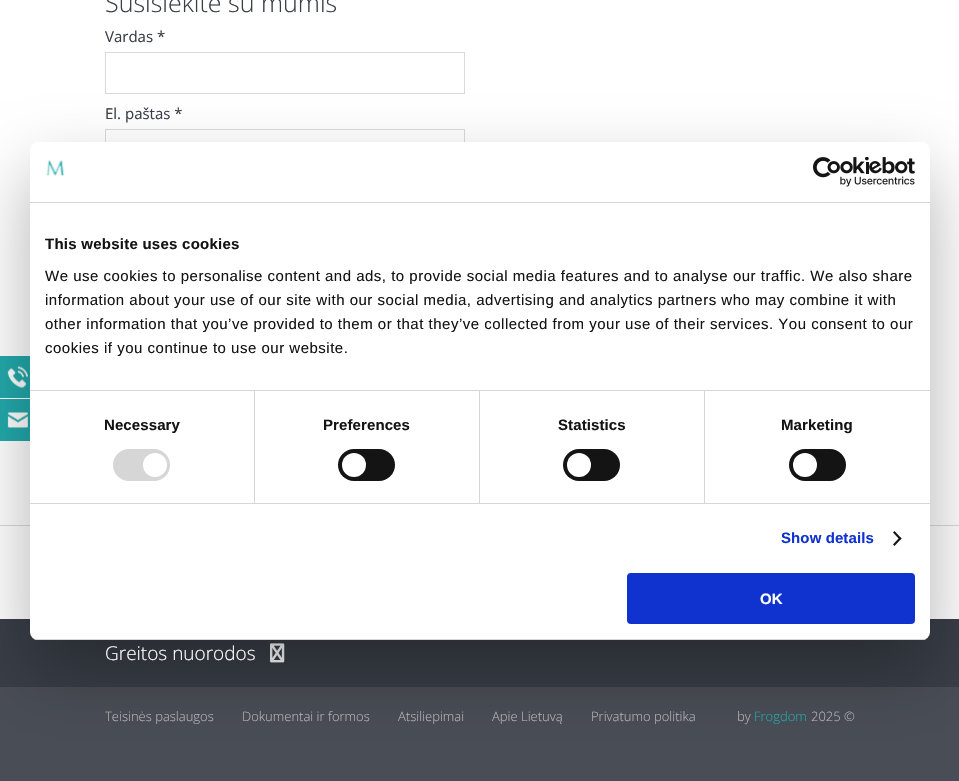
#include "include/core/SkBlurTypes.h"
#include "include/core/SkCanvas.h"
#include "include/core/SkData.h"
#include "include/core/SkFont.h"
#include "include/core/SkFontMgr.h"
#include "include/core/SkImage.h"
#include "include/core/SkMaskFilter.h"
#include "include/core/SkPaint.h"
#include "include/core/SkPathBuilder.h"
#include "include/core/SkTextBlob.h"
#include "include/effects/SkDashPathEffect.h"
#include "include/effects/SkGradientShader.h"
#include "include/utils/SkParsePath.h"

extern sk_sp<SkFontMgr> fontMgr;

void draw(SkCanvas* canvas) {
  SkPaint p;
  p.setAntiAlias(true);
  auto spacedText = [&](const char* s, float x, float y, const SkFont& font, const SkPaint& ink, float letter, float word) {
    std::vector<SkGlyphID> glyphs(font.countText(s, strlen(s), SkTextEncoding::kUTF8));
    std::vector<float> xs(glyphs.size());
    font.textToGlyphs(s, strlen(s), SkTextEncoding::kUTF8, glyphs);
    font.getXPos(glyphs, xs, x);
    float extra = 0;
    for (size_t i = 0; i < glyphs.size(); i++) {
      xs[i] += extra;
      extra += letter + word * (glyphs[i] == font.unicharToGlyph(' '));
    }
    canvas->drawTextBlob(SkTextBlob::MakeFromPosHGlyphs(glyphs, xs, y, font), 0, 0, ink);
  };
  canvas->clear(SK_ColorWHITE);
  p.setStyle(SkPaint::kStroke_Style);
  p.setStrokeWidth(1);
  p.setColor(SkColorSetRGB(218, 218, 219));
  canvas->drawRect(SkRect::MakeLTRB(105.5f, 52.5f, 464.5f, 93.5f), p);
  canvas->drawRect(SkRect::MakeLTRB(105.5f, 129.5f, 464.5f, 170.5f), p);
  p.setStyle(SkPaint::kFill_Style);
  p.setColor(SkColorSetRGB(34, 169, 171));
  canvas->drawRect(SkRect::MakeLTRB(0, 356, 30, 398), p);
  canvas->drawImageRect(SkImages::DeferredFromEncodedData(SkData::MakeFromFileName("images/1.png")), SkRect::MakeLTRB(7, 366, 28, 388), SkSamplingOptions());
  canvas->drawRect(SkRect::MakeLTRB(0, 399, 30, 441), p);
  canvas->drawImageRect(SkImages::DeferredFromEncodedData(SkData::MakeFromFileName("images/2.png")), SkRect::MakeLTRB(7, 412, 28, 428), SkSamplingOptions());
  p.setColor(SkColorSetRGB(218, 218, 219));
  canvas->drawRect(SkRect::MakeLTRB(0, 525, 959, 526), p);
  p.setColor(SkColorSetRGB(57, 62, 71));
  canvas->drawRect(SkRect::MakeLTRB(0, 619, 959, 687), p);
  canvas->drawImageRect(SkImages::DeferredFromEncodedData(SkData::MakeFromFileName("images/5.png")), SkRect::MakeLTRB(270, 643, 285, 663), SkSamplingOptions());
  p.setColor(SkColorSetRGB(73, 77, 85));
  canvas->drawRect(SkRect::MakeLTRB(0, 687, 959, 781), p);
  p.setColor(SkColorSetARGB(77, 0, 0, 0));
  p.setMaskFilter(SkMaskFilter::MakeBlur(kNormal_SkBlurStyle, 34));
  canvas->drawRoundRect(SkRect::MakeLTRB(30, 174, 930, 672), 8, 8, p);
  p.setMaskFilter(nullptr);
  p.setColor(SK_ColorWHITE);
  canvas->drawRoundRect(SkRect::MakeLTRB(30, 142, 930, 640), 8, 8, p);
  p.setColor(SkColorSetRGB(214, 214, 214));
  canvas->drawRect(SkRect::MakeLTRB(30, 202, 930, 203), p);
  canvas->drawImageRect(SkImages::DeferredFromEncodedData(SkData::MakeFromFileName("images/3.png")), SkRect::MakeLTRB(45, 159, 65, 177), SkSamplingOptions());
  canvas->drawImageRect(SkImages::DeferredFromEncodedData(SkData::MakeFromFileName("images/4.png")), SkRect::MakeLTRB(813, 157, 915, 187), SkSamplingOptions());
  canvas->drawRect(SkRect::MakeLTRB(30, 390, 930, 391), p);
  canvas->drawRect(SkRect::MakeLTRB(30, 503, 930, 504), p);
  canvas->drawRect(SkRect::MakeLTRB(254, 391, 255, 503), p);
  canvas->drawRoundRect(SkRect::MakeLTRB(113, 449, 170, 481), 16, 16, p);
  p.setColor(SK_ColorWHITE);
  canvas->drawCircle(155, 465, 12, p);
  p.setColor(SkColorSetRGB(214, 214, 214));
  canvas->drawRect(SkRect::MakeLTRB(479, 391, 480, 503), p);
  p.setColor(SkColorSetRGB(20, 20, 20));
  canvas->drawRoundRect(SkRect::MakeLTRB(338, 449, 395, 481), 16, 16, p);
  p.setColor(SK_ColorWHITE);
  canvas->drawCircle(354, 465, 12, p);
  p.setColor(SkColorSetRGB(214, 214, 214));
  canvas->drawRect(SkRect::MakeLTRB(704, 391, 705, 503), p);
  p.setColor(SkColorSetRGB(20, 20, 20));
  canvas->drawRoundRect(SkRect::MakeLTRB(563, 449, 620, 481), 16, 16, p);
  p.setColor(SK_ColorWHITE);
  canvas->drawCircle(579, 465, 12, p);
  p.setColor(SkColorSetRGB(20, 20, 20));
  canvas->drawRoundRect(SkRect::MakeLTRB(789, 449, 846, 481), 16, 16, p);
  p.setColor(SK_ColorWHITE);
  canvas->drawCircle(805, 465, 12, p);
  p.setColor(SkColorSetRGB(20, 20, 20));
  canvas->drawPath(SkPathBuilder().moveTo(894.5f, 531).lineTo(901.5f, 538.5f).lineTo(900, 540).lineTo(893, 532.5f).close().detach(), p);
  canvas->drawPath(SkPathBuilder().moveTo(900, 537).lineTo(901.5f, 538.5f).lineTo(894.5f, 546).lineTo(893, 544.5f).close().detach(), p);
  canvas->save();
  canvas->clipPath(SkPathBuilder().moveTo(38, 142).lineTo(922, 142).cubicTo(926.5f, 142, 930, 145.5f, 930, 150).lineTo(930, 632).cubicTo(930, 636.5f, 926.5f, 640, 922, 640).lineTo(38, 640).cubicTo(33.5f, 640, 30, 636.5f, 30, 632).lineTo(30, 150).cubicTo(30, 145.5f, 33.5f, 142, 38, 142).close().detach(), true);
  p.setColor(SkColorSetRGB(214, 214, 214));
  canvas->drawRect(SkRect::MakeLTRB(30, 639, 930, 640), p);
  canvas->restore();
  p.setColor(SkColorSetRGB(16, 50, 207));
  canvas->drawRoundRect(SkRect::MakeLTRB(628, 574, 914, 623), 3, 3, p);
  p.setStyle(SkPaint::kStroke_Style);
  p.setStrokeWidth(2);
  canvas->drawRoundRect(SkRect::MakeLTRB(628, 574, 914, 623), 3, 3, p);
  SkFont font1(fontMgr->matchFamilyStyle("Open Sans", SkFontStyle(300, SkFontStyle::kNormal_Width, SkFontStyle::kUpright_Slant)), 25);
  font1.setSubpixel(true);
  p.setStyle(SkPaint::kFill_Style);
  p.setColor(SkColorSetRGB(57, 62, 71));
  canvas->drawString("Susisiekite su mumis", 105, 12, font1, p);
  SkFont font2(fontMgr->matchFamilyStyle("Open Sans", SkFontStyle::Normal()), 15);
  font2.setSubpixel(true);
  canvas->drawString("Vardas *", 105, 42, font2, p);
  canvas->drawString("El. paštas *", 105, 119, font2, p);
  SkFont font3(fontMgr->matchFamilyStyle("Liberation Sans", SkFontStyle::Bold()), 15);
  font3.setSubpixel(true);
  p.setColor(SkColorSetRGB(20, 20, 20));
  spacedText("This website uses cookies", 45, 249, font3, p, 0.25f, 0);
  SkFont font4(fontMgr->matchFamilyStyle("Liberation Sans", SkFontStyle::Normal()), 15);
  font4.setSubpixel(true);
  spacedText("We use cookies to personalise content and ads, to provide social media features and to analyse our traffic. We also share", 45, 281, font4, p, 0.5f, 0);
  spacedText("information about your use of our site with our social media, advertising and analytics partners who may combine it with", 45, 305, font4, p, 0.5f, 0);
  spacedText("other information that you’ve provided to them or that they’ve collected from your use of their services. You consent to our", 45, 329, font4, p, 0.5f, 0);
  spacedText("cookies if you continue to use our website.", 45, 353, font4, p, 0.5f, 0);
  spacedText("Necessary", 104, 430, font3, p, 0.1f, 0);
  spacedText("Preferences", 323, 430, font3, p, 0.1f, 0);
  spacedText("Statistics", 558, 430, font3, p, 0.1f, 0);
  spacedText("Marketing", 781, 430, font3, p, 0.1f, 0);
  p.setColor(SkColorSetRGB(16, 50, 207));
  spacedText("Show details", 781, 543, font3, p, 0.1f, 0);
  p.setColor(SK_ColorWHITE);
  canvas->drawString("OK", 760, 604, font3, p);
  SkFont font5(fontMgr->matchFamilyStyle("Open Sans", SkFontStyle(300, SkFontStyle::kNormal_Width, SkFontStyle::kUpright_Slant)), 19);
  font5.setSubpixel(true);
  canvas->drawString("Greitos nuorodos", 105, 660, font5, p);
  SkFont font6(fontMgr->matchFamilyStyle("Open Sans", SkFontStyle(300, SkFontStyle::kNormal_Width, SkFontStyle::kUpright_Slant)), 13);
  font6.setSubpixel(true);
  p.setColor(SkColorSetRGB(179, 181, 183));
  canvas->drawString("Teisinės paslaugos", 105, 721, font6, p);
  canvas->drawString("Dokumentai ir formos", 242, 721, font6, p);
  canvas->drawString("Atsiliepimai", 398, 721, font6, p);
  canvas->drawString("Apie Lietuvą", 492, 721, font6, p);
  canvas->drawString("Privatumo politika", 591, 721, font6, p);
  canvas->drawString("by", 737, 721, font6, p);
  p.setColor(SkColorSetRGB(34, 169, 171));
  canvas->drawString("Frogdom", 754, 721, font6, p);
  p.setColor(SkColorSetRGB(179, 181, 183));
  canvas->drawString("2025 ©", 811, 721, font6, p);
}
